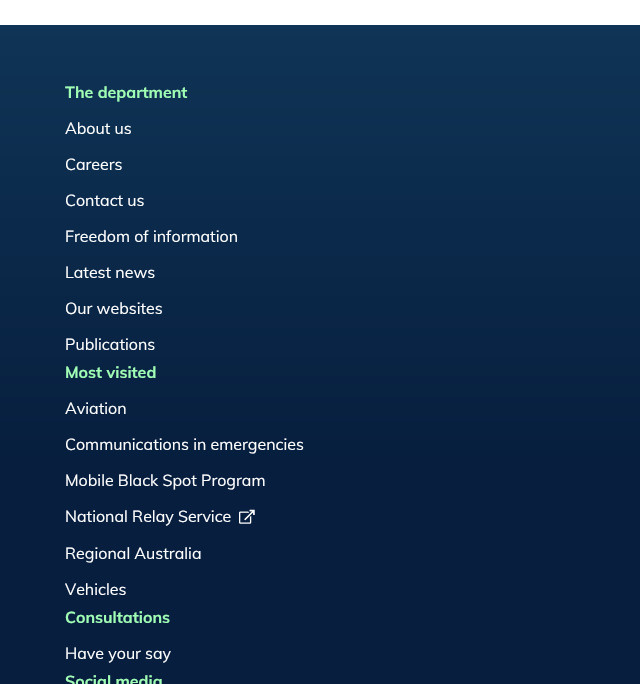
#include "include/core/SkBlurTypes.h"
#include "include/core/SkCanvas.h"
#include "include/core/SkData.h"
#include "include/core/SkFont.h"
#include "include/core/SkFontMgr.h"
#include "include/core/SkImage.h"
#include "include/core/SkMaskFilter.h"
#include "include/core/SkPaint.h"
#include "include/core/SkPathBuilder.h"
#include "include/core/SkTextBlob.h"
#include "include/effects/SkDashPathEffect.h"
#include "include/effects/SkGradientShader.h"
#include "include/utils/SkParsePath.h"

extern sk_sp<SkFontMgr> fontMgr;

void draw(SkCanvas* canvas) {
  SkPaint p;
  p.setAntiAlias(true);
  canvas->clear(SK_ColorWHITE);
  {
    const SkColor colors[] = {SkColorSetRGB(15, 52, 86), SkColorSetRGB(7, 30, 62)};
    const float stops[] = {0, 0.39f};
    const SkPoint ends[] = {{320, 25}, {320, 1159}};
    p.setShader(SkGradientShader::MakeLinear(ends, colors, stops, 2, SkTileMode::kClamp));
    p.setAlpha(255);
  }
  canvas->drawRect(SkRect::MakeLTRB(0, 25, 640, 684), p);
  canvas->drawImageRect(SkImages::DeferredFromEncodedData(SkData::MakeFromFileName("images/1.png")), SkRect::MakeLTRB(239, 509, 255, 524), SkSamplingOptions());
  SkFont font1(fontMgr->matchFamilyStyle("Muli", SkFontStyle::Bold()), 16);
  font1.setSubpixel(true);
  p.setShader(nullptr);
  p.setColor(SkColorSetRGB(161, 254, 181));
  canvas->drawString("The department", 65, 98, font1, p);
  SkFont font2(fontMgr->matchFamilyStyle("Muli", SkFontStyle::Normal()), 16);
  font2.setSubpixel(true);
  p.setColor(SK_ColorWHITE);
  canvas->drawString("About us", 65, 134, font2, p);
  canvas->drawString("Careers", 65, 170, font2, p);
  canvas->drawString("Contact us", 65, 206, font2, p);
  canvas->drawString("Freedom of information", 65, 242, font2, p);
  canvas->drawString("Latest news", 65, 278, font2, p);
  canvas->drawString("Our websites", 65, 314, font2, p);
  canvas->drawString("Publications", 65, 350, font2, p);
  p.setColor(SkColorSetRGB(161, 254, 181));
  canvas->drawString("Most visited", 65, 378, font1, p);
  p.setColor(SK_ColorWHITE);
  canvas->drawString("Aviation", 65, 414, font2, p);
  canvas->drawString("Communications in emergencies", 65, 450, font2, p);
  canvas->drawString("Mobile Black Spot Program", 65, 486, font2, p);
  canvas->drawString("National Relay Service", 65, 522, font2, p);
  canvas->drawString("Regional Australia", 65, 559, font2, p);
  canvas->drawString("Vehicles", 65, 595, font2, p);
  p.setColor(SkColorSetRGB(161, 254, 181));
  canvas->drawString("Consultations", 65, 623, font1, p);
  p.setColor(SK_ColorWHITE);
  canvas->drawString("Have your say", 65, 659, font2, p);
  p.setColor(SkColorSetRGB(161, 254, 181));
  canvas->drawString("Social media", 65, 687, font1, p);
}
